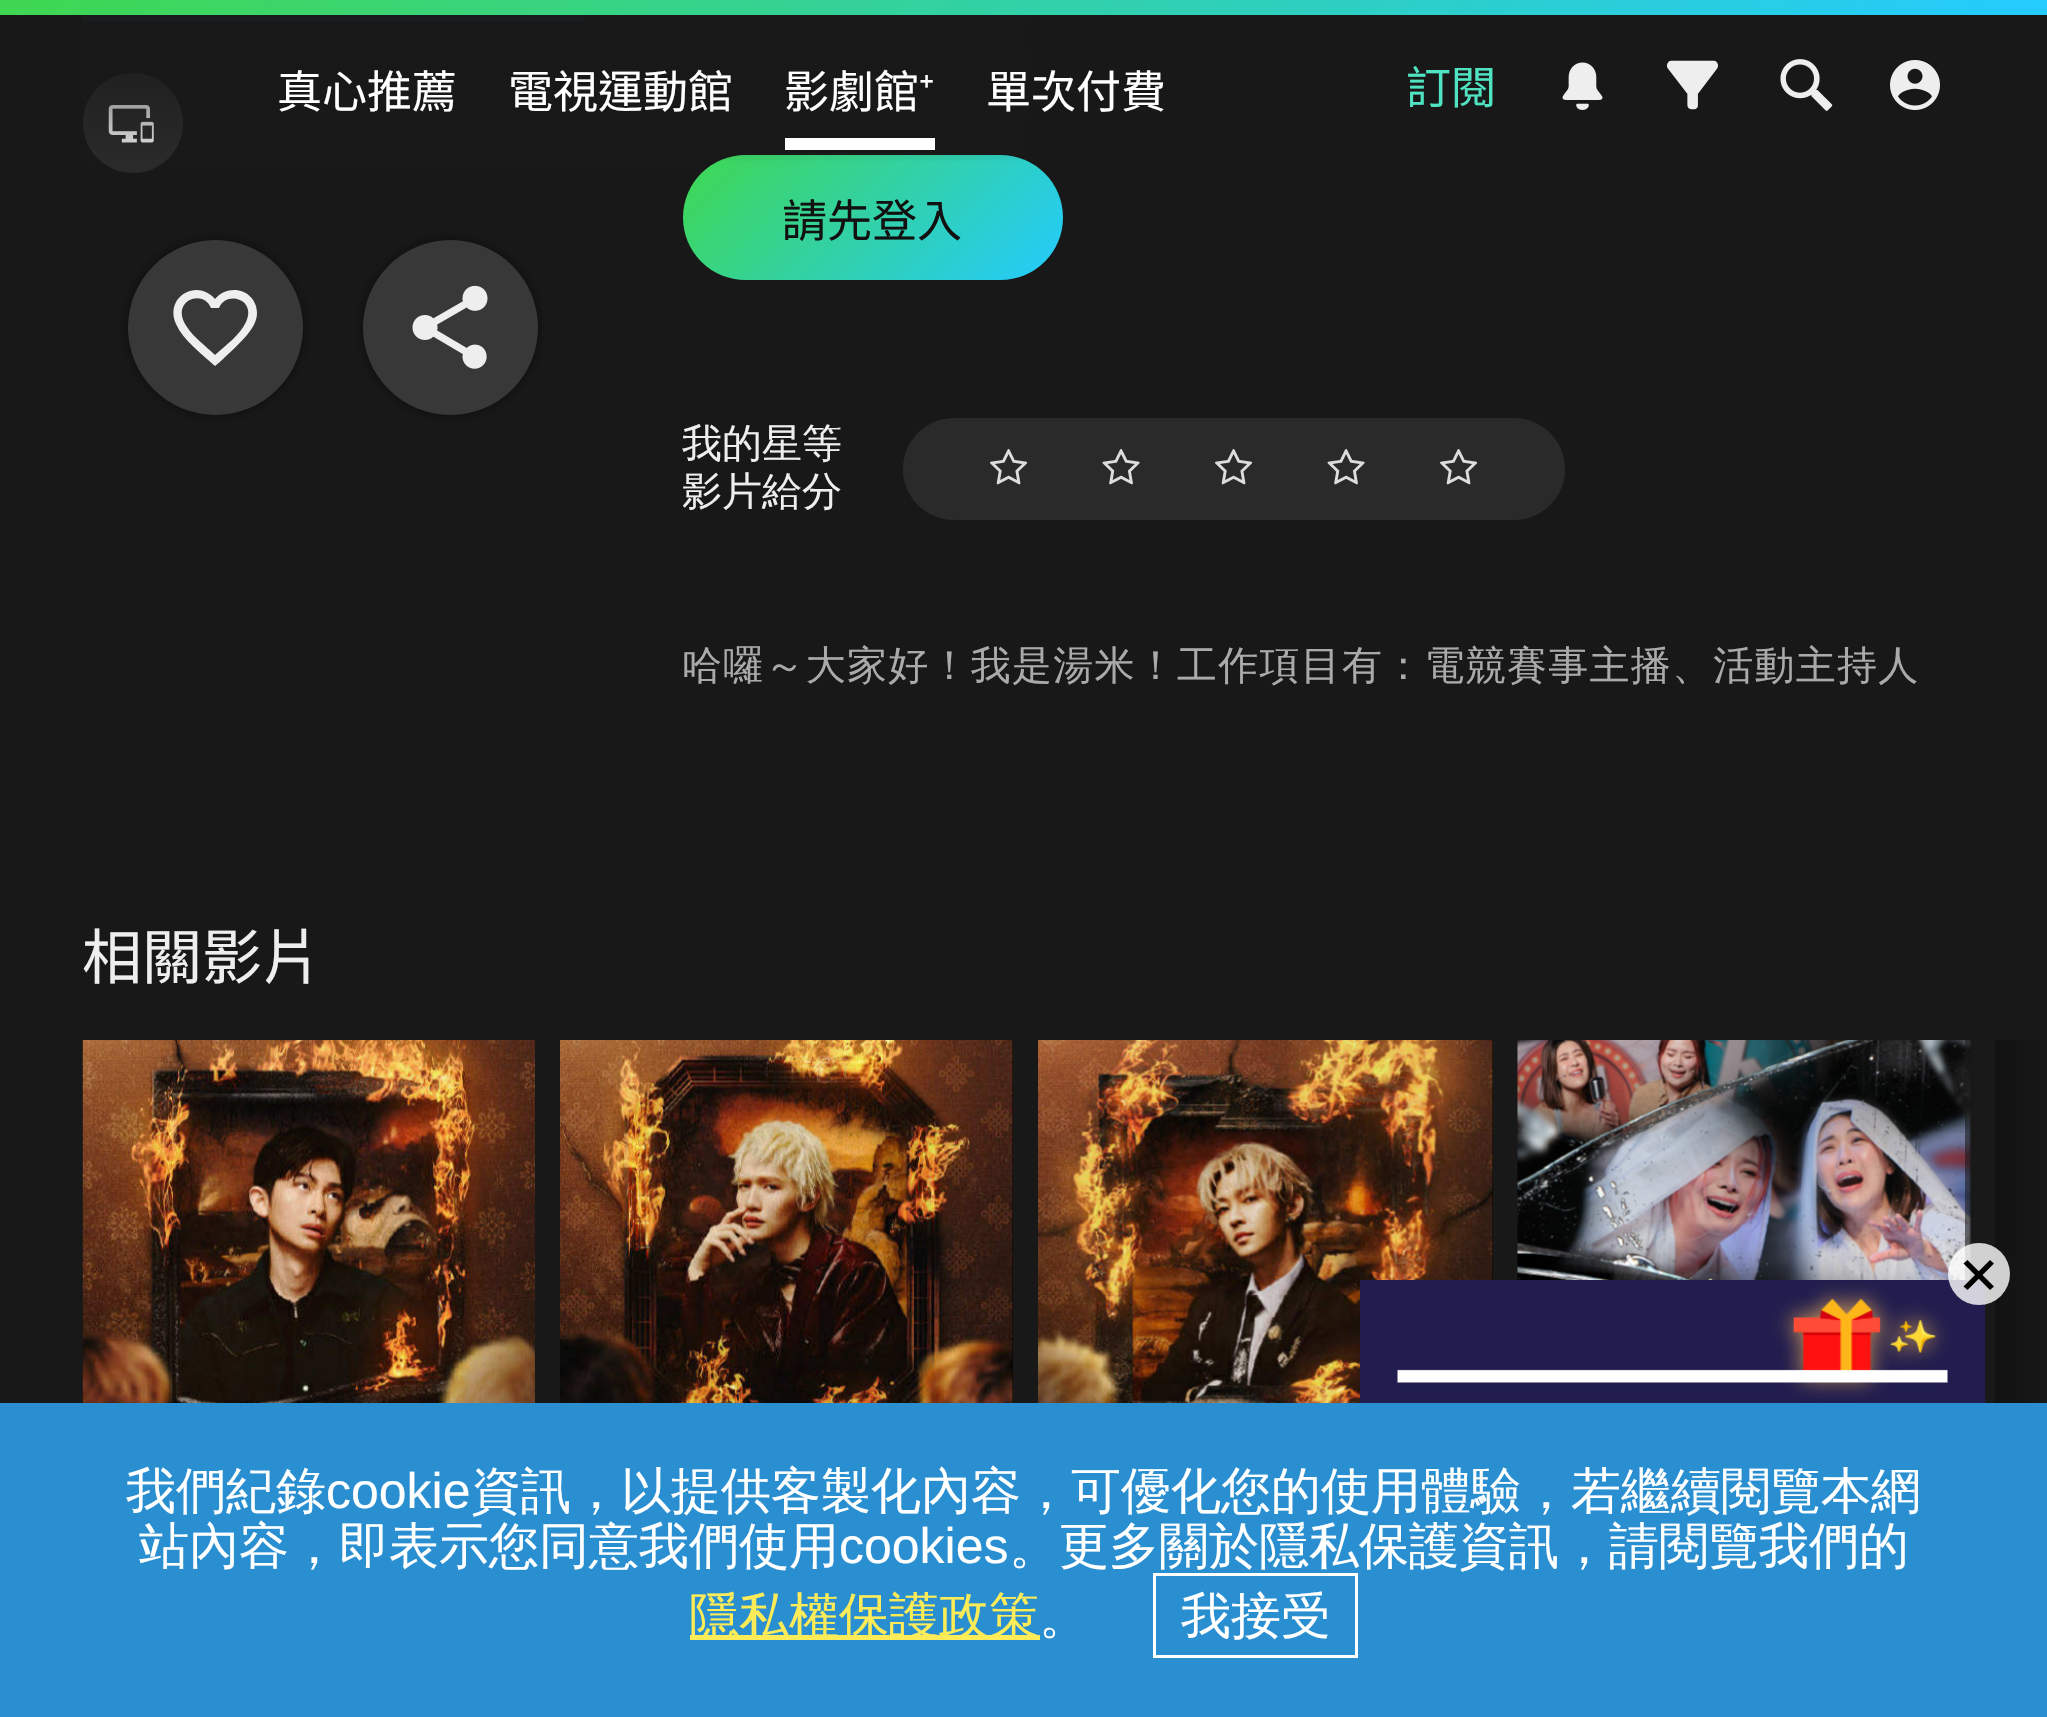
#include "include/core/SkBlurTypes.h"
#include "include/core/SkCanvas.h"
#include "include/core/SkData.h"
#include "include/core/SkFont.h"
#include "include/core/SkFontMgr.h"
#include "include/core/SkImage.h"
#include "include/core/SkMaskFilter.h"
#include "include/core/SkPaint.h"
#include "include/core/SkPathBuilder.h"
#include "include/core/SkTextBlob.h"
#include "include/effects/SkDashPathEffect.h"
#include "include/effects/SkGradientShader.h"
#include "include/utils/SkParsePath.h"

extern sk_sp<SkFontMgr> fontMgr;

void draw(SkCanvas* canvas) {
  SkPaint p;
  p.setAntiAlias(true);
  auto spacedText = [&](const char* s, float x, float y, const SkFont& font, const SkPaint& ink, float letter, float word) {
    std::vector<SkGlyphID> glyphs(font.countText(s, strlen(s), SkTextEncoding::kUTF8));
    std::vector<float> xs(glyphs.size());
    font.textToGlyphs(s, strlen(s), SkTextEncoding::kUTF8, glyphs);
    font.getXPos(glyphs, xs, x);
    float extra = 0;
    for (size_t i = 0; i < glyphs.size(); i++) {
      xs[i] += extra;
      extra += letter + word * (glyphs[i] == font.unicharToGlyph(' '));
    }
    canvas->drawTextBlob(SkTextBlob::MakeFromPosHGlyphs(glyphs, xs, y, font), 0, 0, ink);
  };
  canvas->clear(SkColorSetRGB(24, 24, 24));
  p.setColor(SK_ColorBLACK);
  canvas->drawRect(SkRect::MakeLTRB(83, 22, 583, 23), p);
  p.setColor(SkColorSetRGB(33, 55, 69));
  canvas->drawRect(SkRect::MakeLTRB(82, 15, 583, 22), p);
  p.setColor(SkColorSetRGB(42, 42, 42));
  canvas->drawCircle(133, 123, 50, p);
  canvas->drawImageRect(SkImages::DeferredFromEncodedData(SkData::MakeFromFileName("images/5.png")), SkRect::MakeLTRB(108, 105, 154, 143), SkSamplingOptions());
  {
    const SkColor colors[] = {SkColorSetRGB(63, 215, 80), SkColorSetRGB(36, 203, 255)};
    const float stops[] = {0, 1};
    const SkPoint ends[] = {{745, 92}, {1000, 343}};
    p.setShader(SkGradientShader::MakeLinear(ends, colors, stops, 2, SkTileMode::kClamp));
    p.setAlpha(255);
  }
  canvas->drawRoundRect(SkRect::MakeLTRB(683, 155, 1063, 280), 62.5f, 62.5f, p);
  {
    const SkColor colors[] = {SkColorSetRGB(24, 24, 24), SkColorSetARGB(0, 24, 24, 24)};
    const float stops[] = {0, 1};
    const SkPoint ends[] = {{1024, 0}, {1024, 165}};
    p.setShader(SkGradientShader::MakeLinear(ends, colors, stops, 2, SkTileMode::kClamp));
    p.setAlpha(255);
  }
  canvas->drawRect(SkRect::MakeLTRB(82, 15, 1026, 161), p);
  {
    const SkColor colors[] = {SkColorSetRGB(63, 215, 80), SkColorSetRGB(36, 203, 255)};
    const float stops[] = {0, 1};
    const SkPoint ends[] = {{503, -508}, {1544, 523}};
    p.setShader(SkGradientShader::MakeLinear(ends, colors, stops, 2, SkTileMode::kClamp));
    p.setAlpha(255);
  }
  canvas->drawRect(SkRect::MakeLTRB(0, 0, 2047, 15), p);
  p.setShader(nullptr);
  p.setColor(SK_ColorWHITE);
  canvas->drawRect(SkRect::MakeLTRB(785, 138, 935, 150), p);
  canvas->drawImageRect(SkImages::DeferredFromEncodedData(SkData::MakeFromFileName("images/1.png")), SkRect::MakeLTRB(1562, 62, 1603, 110), SkSamplingOptions());
  canvas->drawImageRect(SkImages::DeferredFromEncodedData(SkData::MakeFromFileName("images/2.png")), SkRect::MakeLTRB(1666, 60, 1718, 110), SkSamplingOptions());
  canvas->drawImageRect(SkImages::DeferredFromEncodedData(SkData::MakeFromFileName("images/3.png")), SkRect::MakeLTRB(1780, 59, 1833, 111), SkSamplingOptions());
  canvas->drawImageRect(SkImages::DeferredFromEncodedData(SkData::MakeFromFileName("images/4.png")), SkRect::MakeLTRB(1890, 60, 1940, 110), SkSamplingOptions());
  p.setColor(SkColorSetARGB(128, 0, 0, 0));
  p.setMaskFilter(SkMaskFilter::MakeBlur(kNormal_SkBlurStyle, 6));
  canvas->drawRoundRect(SkRect::MakeLTRB(128, 240, 303, 415), 87.5f, 87.5f, p);
  p.setMaskFilter(nullptr);
  p.setColor(SkColorSetRGB(56, 56, 56));
  canvas->drawCircle(215.5f, 327.5f, 87.5f, p);
  p.setColor(SkColorSetRGB(238, 238, 238));
  canvas->drawPath(SkPathBuilder().moveTo(234, 290).cubicTo(227, 290, 220, 293, 215, 299).cubicTo(197, 278, 164, 297, 176, 324).cubicTo(183, 340, 202, 354, 215, 366).lineTo(221, 361).cubicTo(242, 341, 257, 328, 257, 313).cubicTo(257, 300, 247, 290, 234, 290).close().moveTo(215, 355).cubicTo(206, 346, 194, 338, 187, 327).cubicTo(169, 301, 203, 288, 211, 308).lineTo(219, 308).cubicTo(226, 290, 257, 299, 246, 322).cubicTo(240, 335, 226, 345, 215, 355).close().detach(), p);
  p.setColor(SkColorSetARGB(128, 0, 0, 0));
  p.setMaskFilter(SkMaskFilter::MakeBlur(kNormal_SkBlurStyle, 6));
  canvas->drawRoundRect(SkRect::MakeLTRB(363, 240, 538, 415), 87.5f, 87.5f, p);
  p.setMaskFilter(nullptr);
  p.setColor(SkColorSetRGB(56, 56, 56));
  canvas->drawCircle(450.5f, 327.5f, 87.5f, p);
  canvas->drawImageRect(SkImages::DeferredFromEncodedData(SkData::MakeFromFileName("images/6.png")), SkRect::MakeLTRB(412, 285, 488, 369), SkSamplingOptions());
  p.setColor(SkColorSetRGB(42, 42, 42));
  canvas->drawRoundRect(SkRect::MakeLTRB(903, 418, 1565, 520), 51, 51, p);
  canvas->drawImageRect(SkImages::DeferredFromEncodedData(SkData::MakeFromFileName("images/7.png")), SkRect::MakeLTRB(990, 449, 1028, 485), SkSamplingOptions());
  canvas->drawImageRect(SkImages::DeferredFromEncodedData(SkData::MakeFromFileName("images/8.png")), SkRect::MakeLTRB(1102, 449, 1140, 485), SkSamplingOptions());
  canvas->drawImageRect(SkImages::DeferredFromEncodedData(SkData::MakeFromFileName("images/7.png")), SkRect::MakeLTRB(1215, 449, 1253, 485), SkSamplingOptions());
  canvas->drawImageRect(SkImages::DeferredFromEncodedData(SkData::MakeFromFileName("images/8.png")), SkRect::MakeLTRB(1327, 449, 1365, 485), SkSamplingOptions());
  canvas->drawImageRect(SkImages::DeferredFromEncodedData(SkData::MakeFromFileName("images/7.png")), SkRect::MakeLTRB(1440, 449, 1478, 485), SkSamplingOptions());
  canvas->drawImageRect(SkImages::DeferredFromEncodedData(SkData::MakeFromFileName("images/9.png")), SkRect::MakeLTRB(82, 1040, 535, 1403), SkSamplingOptions());
  p.setColor(SK_ColorBLACK);
  canvas->drawRect(SkRect::MakeLTRB(1012, 1040, 1013, 1403), p);
  canvas->drawImageRect(SkImages::DeferredFromEncodedData(SkData::MakeFromFileName("images/10.png")), SkRect::MakeLTRB(560, 1040, 1013, 1403), SkSamplingOptions());
  canvas->drawRect(SkRect::MakeLTRB(1492, 1040, 1493, 1280), p);
  canvas->drawImageRect(SkImages::DeferredFromEncodedData(SkData::MakeFromFileName("images/11.png")), SkRect::MakeLTRB(1038, 1040, 1493, 1403), SkSamplingOptions());
  canvas->drawImageRect(SkImages::DeferredFromEncodedData(SkData::MakeFromFileName("images/12.png")), SkRect::MakeLTRB(1517, 1040, 1971, 1280), SkSamplingOptions());
  {
    const SkColor colors[] = {SK_ColorBLACK, SkColorSetRGB(24, 24, 24)};
    const float stops[] = {0.7f, 1};
    const SkPoint ends[] = {{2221, 1040}, {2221, 1690}};
    p.setShader(SkGradientShader::MakeLinear(ends, colors, stops, 2, SkTileMode::kClamp));
    p.setAlpha(255);
  }
  canvas->drawRect(SkRect::MakeLTRB(1995, 1040, 2047, 1403), p);
  {
    const SkColor colors[] = {SkColorSetARGB(153, 24, 24, 24), SkColorSetRGB(24, 24, 24)};
    const float stops[] = {0, 1};
    const SkPoint ends[] = {{83, 1426}, {0, 1426}};
    p.setShader(SkGradientShader::MakeLinear(ends, colors, stops, 2, SkTileMode::kClamp));
    p.setAlpha(255);
  }
  canvas->drawRect(SkRect::MakeLTRB(82, 1040, 83, 1403), p);
  {
    const SkColor colors[] = {SkColorSetARGB(153, 24, 24, 24), SkColorSetRGB(24, 24, 24)};
    const float stops[] = {0, 1};
    const SkPoint ends[] = {{1965, 1426}, {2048, 1426}};
    p.setShader(SkGradientShader::MakeLinear(ends, colors, stops, 2, SkTileMode::kClamp));
    p.setAlpha(255);
  }
  canvas->drawRect(SkRect::MakeLTRB(1965, 1040, 2047, 1403), p);
  canvas->drawImageRect(SkImages::DeferredFromEncodedData(SkData::MakeFromFileName("images/13.png")), SkRect::MakeLTRB(1360, 1280, 1985, 1403), SkSamplingOptions());
  p.setShader(nullptr);
  p.setColor(SkColorSetARGB(204, 255, 255, 255));
  canvas->drawCircle(1979, 1274, 31, p);
  p.setColor(SK_ColorBLACK);
  canvas->drawPath(SkPathBuilder().moveTo(1963.5f, 1286.5f).lineTo(1990, 1260).lineTo(1994, 1263.5f).lineTo(1967.5f, 1290).close().detach(), p);
  canvas->drawPath(SkPathBuilder().moveTo(1967.5f, 1260).lineTo(1994, 1286.5f).lineTo(1990, 1290).lineTo(1963.5f, 1263.5f).close().detach(), p);
  p.setColor(SkColorSetRGB(41, 143, 209));
  canvas->drawRect(SkRect::MakeLTRB(0, 1403, 2047, 1717), p);
  p.setColor(SkColorSetRGB(253, 236, 87));
  canvas->drawRect(SkRect::MakeLTRB(690, 1635, 1040, 1640), p);
  p.setStyle(SkPaint::kStroke_Style);
  p.setStrokeWidth(3);
  p.setColor(SK_ColorWHITE);
  canvas->drawRect(SkRect::MakeLTRB(1154.5f, 1574.5f, 1356.5f, 1656.5f), p);
  SkFont font1(fontMgr->matchFamilyStyle("Noto Sans TC", SkFontStyle(100, SkFontStyle::kNormal_Width, SkFontStyle::kUpright_Slant)), 45);
  font1.setSubpixel(true);
  p.setStyle(SkPaint::kFill_Style);
  canvas->drawString("真心推薦", 277, 108, font1, p);
  canvas->drawString("電視運動館", 508, 108, font1, p);
  canvas->drawString("影劇館", 784, 108, font1, p);
  SkFont font2(fontMgr->matchFamilyStyle("Noto Sans", SkFontStyle::Normal()), 45);
  font2.setSubpixel(true);
  canvas->drawString("⁺", 919, 108, font2, p);
  canvas->drawString("單次付費", 986, 108, font1, p);
  p.setColor(SkColorSetRGB(80, 227, 194));
  canvas->drawString("訂閱", 1406, 104, font1, p);
  p.setColor(SkColorSetRGB(17, 17, 17));
  canvas->drawString("請先登入", 782, 237, font1, p);
  SkFont font3(fontMgr->matchFamilyStyle("WenQuanYi Zen Hei", SkFontStyle(500, SkFontStyle::kNormal_Width, SkFontStyle::kUpright_Slant)), 40);
  font3.setSubpixel(true);
  p.setColor(SkColorSetRGB(238, 238, 238));
  canvas->drawString("我的星等", 682, 457, font3, p);
  canvas->drawString("影片給分", 682, 505, font3, p);
  p.setColor(SkColorSetRGB(170, 170, 170));
  spacedText("哈囉～大家好！我是湯米！工作項目有：電競賽事主播、活動主持人", 682, 679, font3, p, 1.25f, 0);
  SkFont font4(fontMgr->matchFamilyStyle("Noto Sans TC", SkFontStyle(100, SkFontStyle::kNormal_Width, SkFontStyle::kUpright_Slant)), 60);
  font4.setSubpixel(true);
  p.setColor(SkColorSetRGB(238, 238, 238));
  canvas->drawString("相關影片", 82, 979, font4, p);
  SkFont font5(fontMgr->matchFamilyStyle("WenQuanYi Zen Hei", SkFontStyle(500, SkFontStyle::kNormal_Width, SkFontStyle::kUpright_Slant)), 50);
  font5.setSubpixel(true);
  p.setColor(SK_ColorWHITE);
  canvas->drawString("我們紀錄", 126, 1508, font5, p);
  SkFont font6(fontMgr->matchFamilyStyle("Liberation Sans", SkFontStyle::Normal()), 50);
  font6.setSubpixel(true);
  canvas->drawString("cookie", 326, 1508, font6, p);
  canvas->drawString("資訊，以提供客製化內容，可優化您的使用體驗，若繼續閱覽本網", 471, 1508, font5, p);
  canvas->drawString("站內容，即表示您同意我們使用", 139, 1563, font5, p);
  canvas->drawString("cookies", 839, 1563, font6, p);
  canvas->drawString("。更多關於隱私保護資訊，請閱覽我們的", 1009, 1563, font5, p);
  p.setColor(SkColorSetRGB(253, 236, 87));
  canvas->drawString("隱私權保護政策", 689, 1633, font5, p);
  p.setColor(SK_ColorWHITE);
  canvas->drawString("。", 1039, 1633, font5, p);
  canvas->drawString("我接受", 1181, 1633, font5, p);
}
